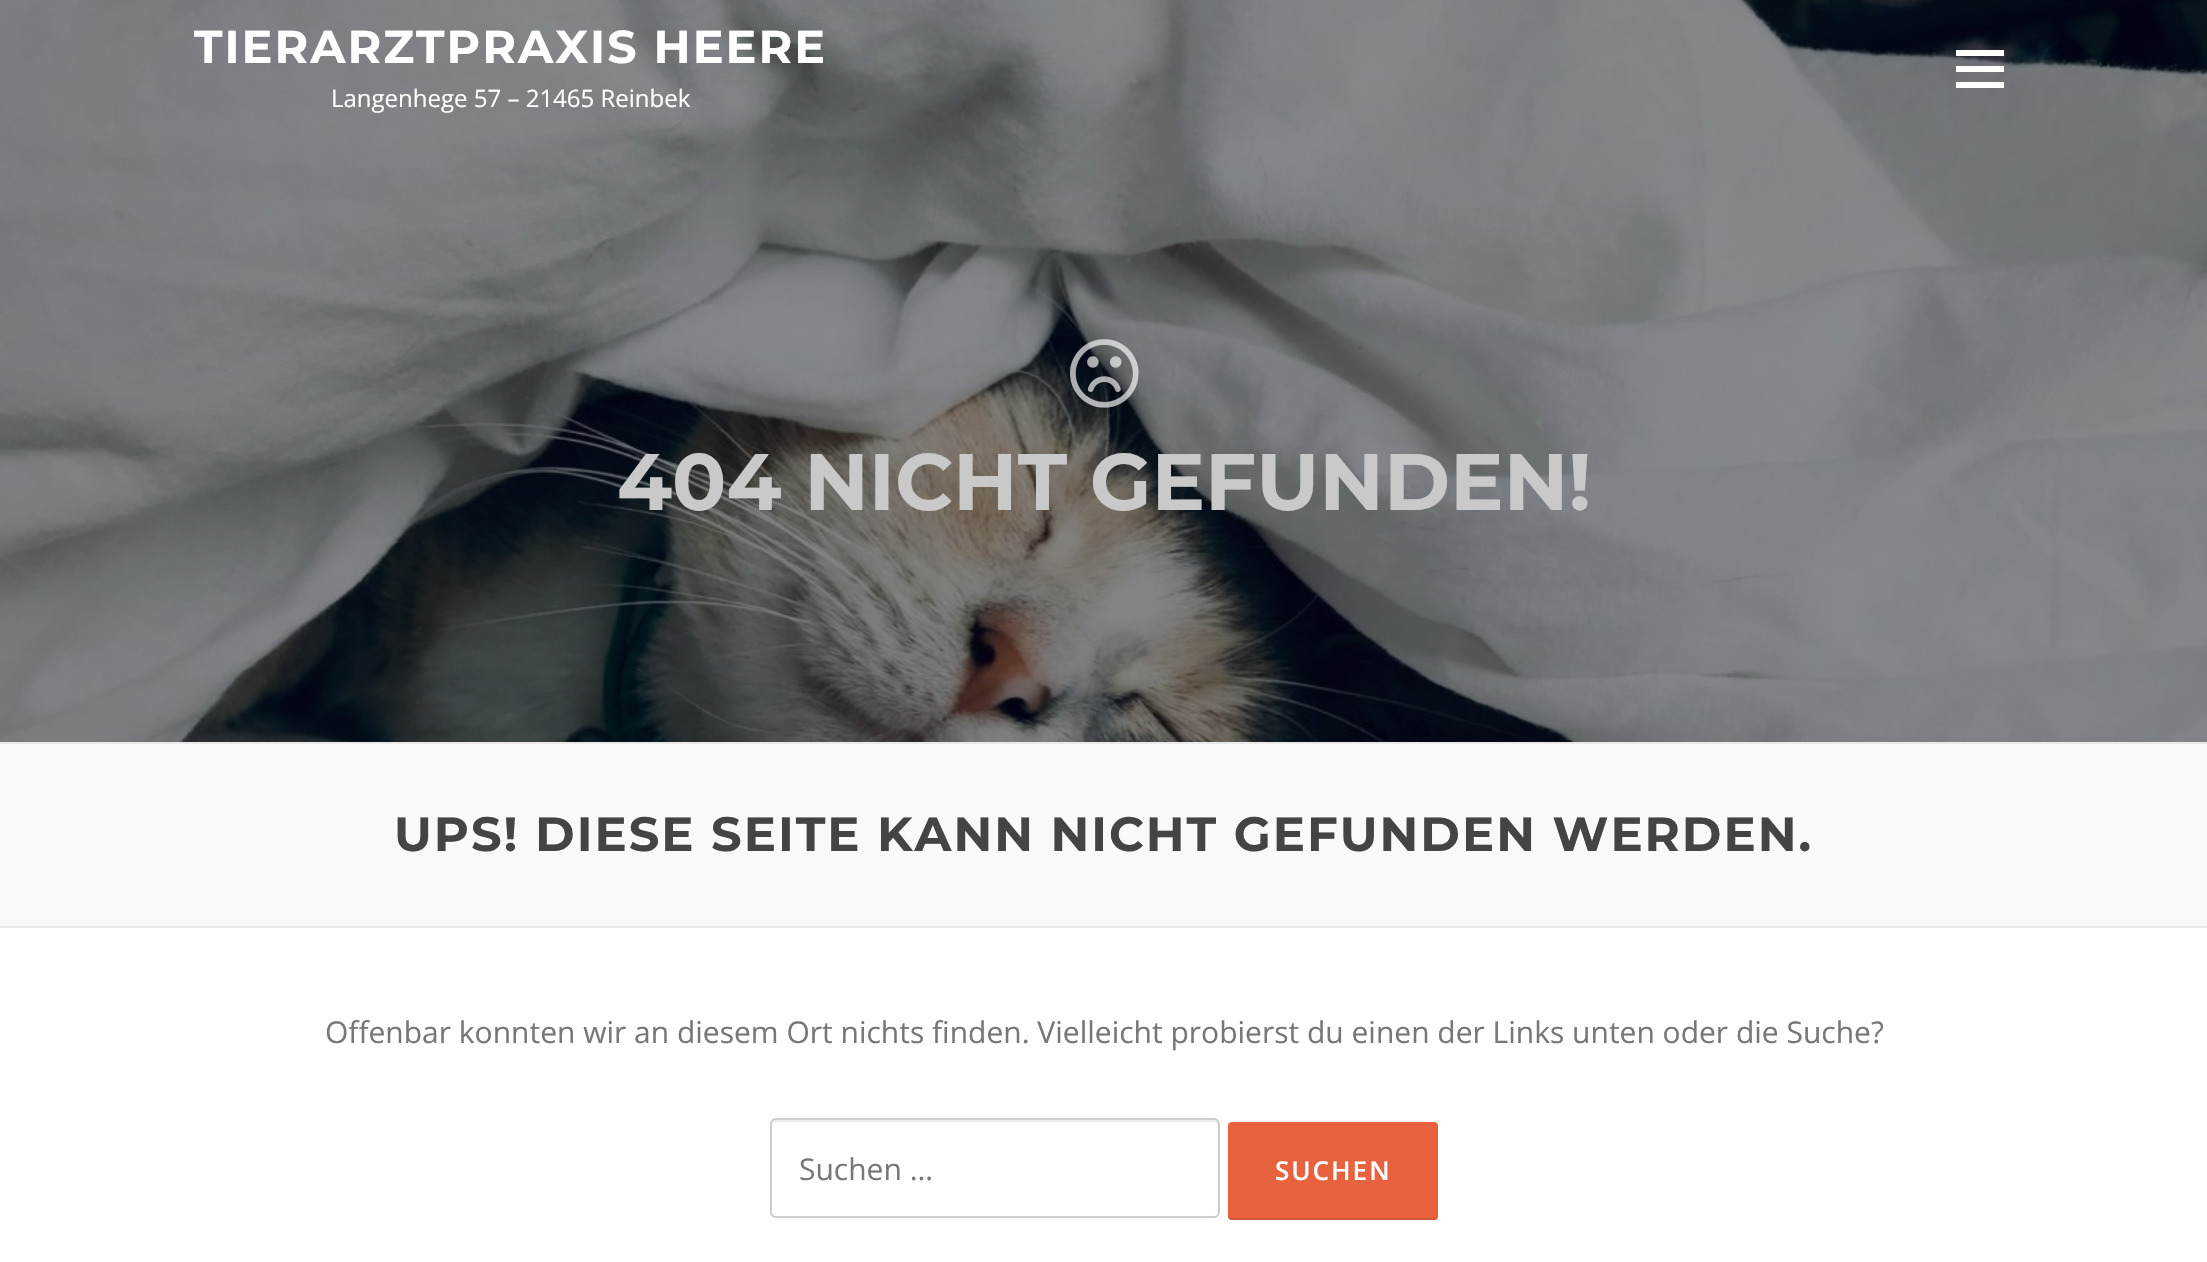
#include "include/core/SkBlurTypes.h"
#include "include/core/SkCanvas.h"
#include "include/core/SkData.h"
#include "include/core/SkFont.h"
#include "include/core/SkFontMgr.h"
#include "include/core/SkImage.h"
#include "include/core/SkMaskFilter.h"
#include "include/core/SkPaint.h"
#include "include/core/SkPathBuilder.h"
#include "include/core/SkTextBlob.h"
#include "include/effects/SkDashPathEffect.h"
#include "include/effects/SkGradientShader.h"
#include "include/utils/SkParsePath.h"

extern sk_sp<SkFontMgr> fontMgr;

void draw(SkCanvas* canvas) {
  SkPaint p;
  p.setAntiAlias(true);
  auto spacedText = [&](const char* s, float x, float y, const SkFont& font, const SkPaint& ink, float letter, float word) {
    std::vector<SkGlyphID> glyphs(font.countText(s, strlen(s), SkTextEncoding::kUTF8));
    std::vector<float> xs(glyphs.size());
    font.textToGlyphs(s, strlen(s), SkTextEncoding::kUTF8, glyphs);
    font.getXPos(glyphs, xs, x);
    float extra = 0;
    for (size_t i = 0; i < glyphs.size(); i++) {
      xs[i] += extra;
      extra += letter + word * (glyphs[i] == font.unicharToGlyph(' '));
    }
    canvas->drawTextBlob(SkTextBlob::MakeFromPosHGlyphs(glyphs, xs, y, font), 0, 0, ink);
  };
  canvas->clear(SK_ColorWHITE);
  canvas->drawImageRect(SkImages::DeferredFromEncodedData(SkData::MakeFromFileName("images/1.png")), SkRect::MakeLTRB(0, 0, 2207, 742), SkSamplingOptions());
  p.setColor(SK_ColorWHITE);
  canvas->drawRect(SkRect::MakeLTRB(1956, 66, 2004, 72), p);
  canvas->drawRect(SkRect::MakeLTRB(1956, 50, 2004, 56), p);
  canvas->drawRect(SkRect::MakeLTRB(1956, 82, 2004, 88), p);
  canvas->drawImageRect(SkImages::DeferredFromEncodedData(SkData::MakeFromFileName("images/2.png")), SkRect::MakeLTRB(1070, 339, 1139, 408), SkSamplingOptions());
  p.setColor(SkColorSetRGB(248, 249, 249));
  canvas->drawRect(SkRect::MakeLTRB(0, 744, 2207, 926), p);
  p.setColor(SkColorSetRGB(233, 233, 233));
  canvas->drawRect(SkRect::MakeLTRB(0, 742, 2207, 744), p);
  canvas->drawRect(SkRect::MakeLTRB(0, 926, 2207, 928), p);
  p.setColor(SkColorSetRGB(235, 235, 235));
  canvas->drawPath(SkPathBuilder().moveTo(776, 1122).lineTo(1214, 1122).cubicTo(1216, 1122, 1218, 1124, 1218, 1126).lineTo(1218, 1124).cubicTo(1218, 1122, 1216, 1120, 1214, 1120).lineTo(776, 1120).cubicTo(774, 1120, 772, 1122, 772, 1124).lineTo(772, 1126).cubicTo(772, 1124, 774, 1122, 776, 1122).close().detach(), p);
  p.setStyle(SkPaint::kStroke_Style);
  p.setStrokeWidth(2);
  p.setColor(SkColorSetRGB(204, 204, 204));
  canvas->drawRoundRect(SkRect::MakeLTRB(771, 1119, 1219, 1217), 5, 5, p);
  p.setStyle(SkPaint::kFill_Style);
  p.setColor(SkColorSetRGB(232, 98, 64));
  canvas->drawRoundRect(SkRect::MakeLTRB(1228, 1122, 1438, 1220), 4, 4, p);
  p.setColor(SkColorSetARGB(26, 0, 0, 0));
  canvas->drawPath(SkPathBuilder().moveTo(1228, 1214).cubicTo(1228, 1217, 1228, 1219, 1231, 1220).lineTo(1435, 1220).cubicTo(1438, 1219, 1438, 1217, 1438, 1214).cubicTo(1438, 1216, 1436, 1218, 1434, 1218).lineTo(1232, 1218).cubicTo(1230, 1218, 1228, 1216, 1228, 1214).close().detach(), p);
  SkFont font1(fontMgr->matchFamilyStyle("Montserrat", SkFontStyle::Bold()), 46);
  font1.setSubpixel(true);
  p.setColor(SK_ColorWHITE);
  spacedText("TIERARZTPRAXIS HEERE", 194, 63, font1, p, 2, 0);
  SkFont font2(fontMgr->matchFamilyStyle("Open Sans", SkFontStyle::Normal()), 24);
  font2.setSubpixel(true);
  canvas->drawString("Langenhege 57 – 21465 Reinbek", 331, 107, font2, p);
  SkFont font3(fontMgr->matchFamilyStyle("Montserrat", SkFontStyle::Bold()), 80);
  font3.setSubpixel(true);
  p.setColor(SkColorSetRGB(200, 201, 200));
  canvas->drawString("404 NICHT GEFUNDEN!", 617, 510, font3, p);
  SkFont font4(fontMgr->matchFamilyStyle("Montserrat", SkFontStyle::Bold()), 48);
  font4.setSubpixel(true);
  p.setColor(SkColorSetRGB(68, 68, 68));
  spacedText("UPS! DIESE SEITE KANN NICHT GEFUNDEN WERDEN.", 394, 851, font4, p, 2, 0);
  SkFont font5(fontMgr->matchFamilyStyle("Open Sans", SkFontStyle::Normal()), 30);
  font5.setSubpixel(true);
  p.setColor(SkColorSetRGB(119, 119, 119));
  canvas->drawString("Offenbar konnten wir an diesem Ort nichts finden. Vielleicht probierst du einen der Links unten oder die Suche?", 325, 1043, font5, p);
  canvas->drawString("Suchen …", 799, 1180, font5, p);
  SkFont font6(fontMgr->matchFamilyStyle("Open Sans", SkFontStyle(600, SkFontStyle::kNormal_Width, SkFontStyle::kUpright_Slant)), 26);
  font6.setSubpixel(true);
  p.setColor(SK_ColorWHITE);
  spacedText("SUCHEN", 1275, 1180, font6, p, 2, 0);
}
